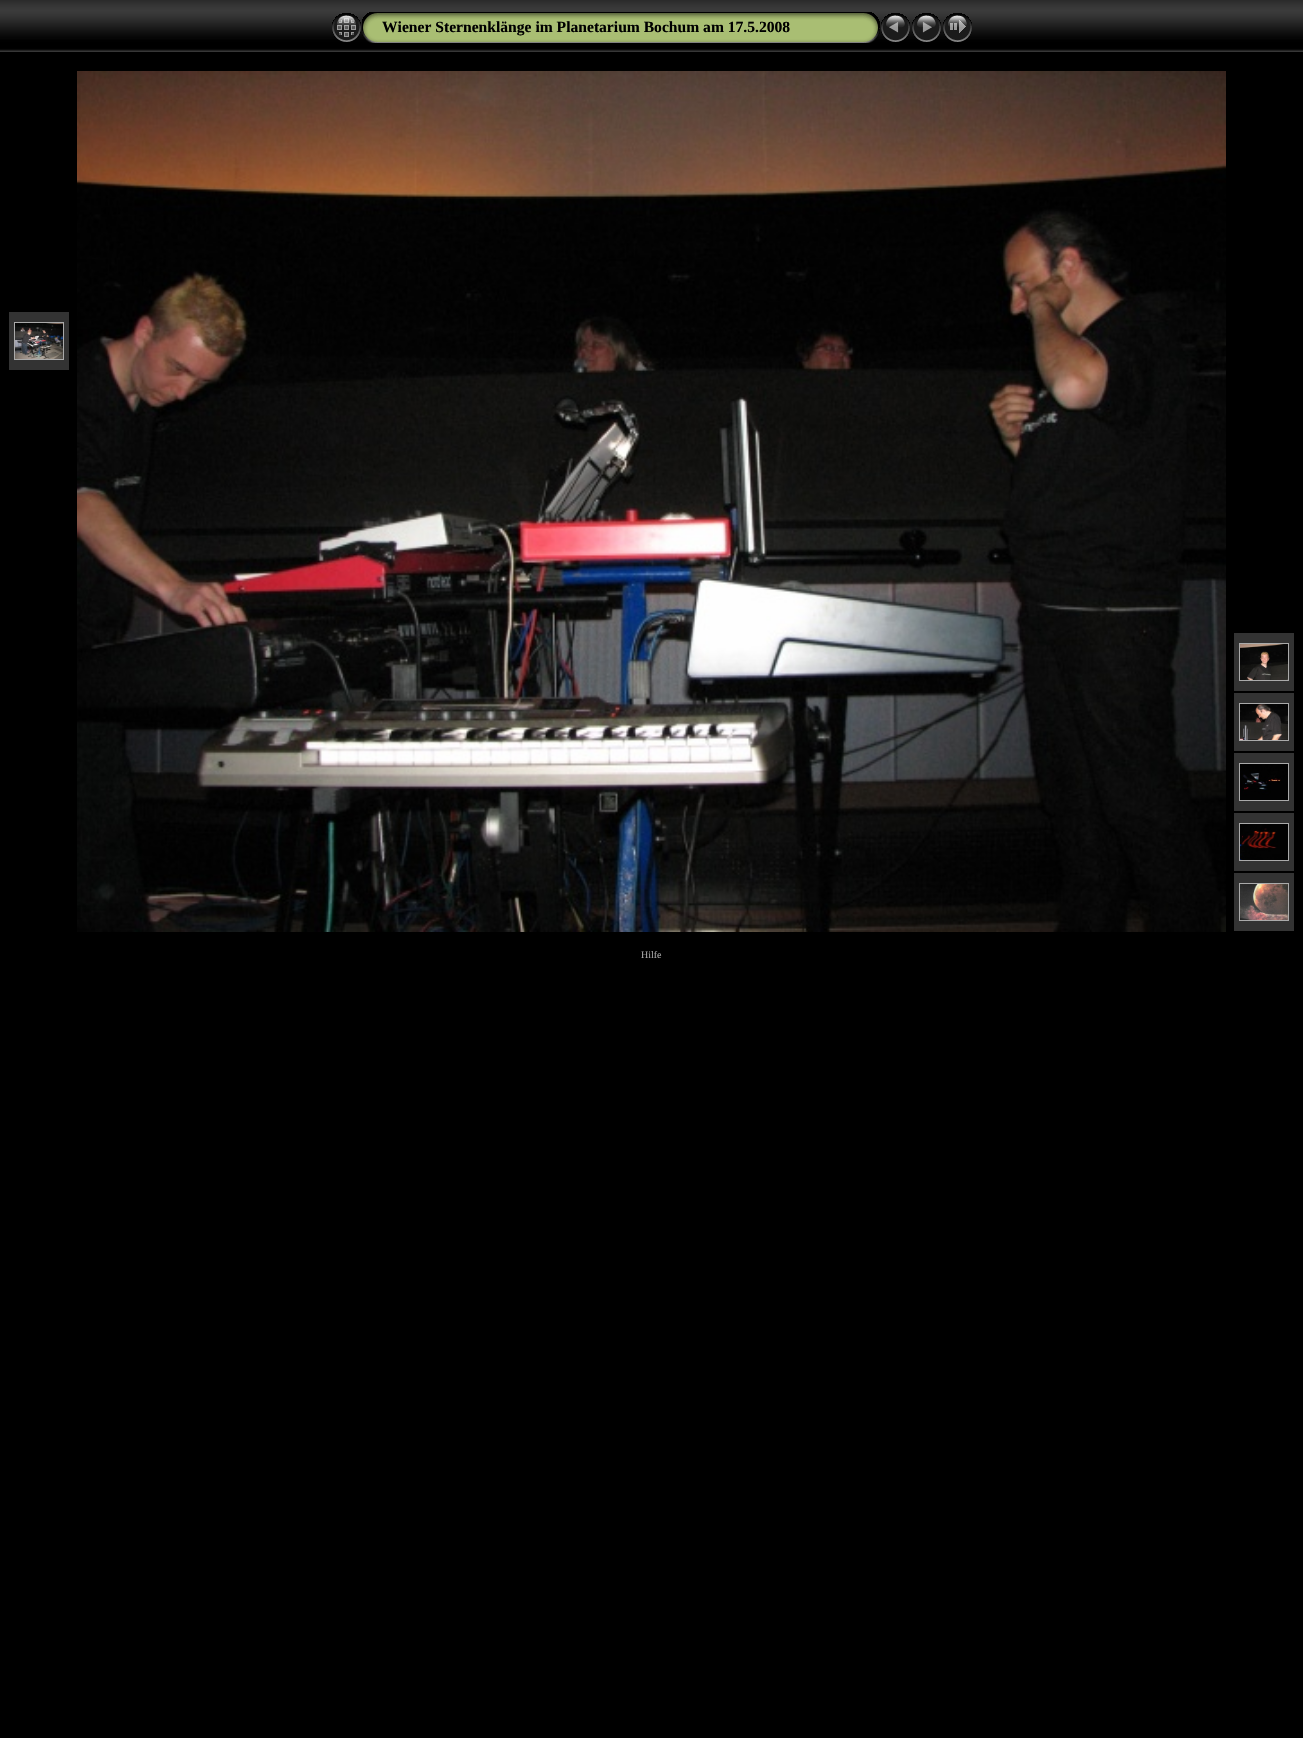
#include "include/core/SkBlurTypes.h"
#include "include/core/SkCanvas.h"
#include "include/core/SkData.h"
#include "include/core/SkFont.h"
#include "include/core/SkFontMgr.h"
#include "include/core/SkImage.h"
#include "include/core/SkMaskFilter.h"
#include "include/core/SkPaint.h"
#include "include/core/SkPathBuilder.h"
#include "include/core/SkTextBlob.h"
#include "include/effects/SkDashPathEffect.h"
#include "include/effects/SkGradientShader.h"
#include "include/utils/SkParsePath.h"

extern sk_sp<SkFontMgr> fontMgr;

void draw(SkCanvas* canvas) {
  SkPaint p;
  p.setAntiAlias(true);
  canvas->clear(SK_ColorBLACK);
  canvas->drawImageRect(SkImages::DeferredFromEncodedData(SkData::MakeFromFileName("images/1.png")), SkRect::MakeLTRB(0, 0, 1303, 52), SkSamplingOptions());
  canvas->drawImageRect(SkImages::DeferredFromEncodedData(SkData::MakeFromFileName("images/2.png")), SkRect::MakeLTRB(332, 13, 361, 42), SkSamplingOptions());
  canvas->drawImageRect(SkImages::DeferredFromEncodedData(SkData::MakeFromFileName("images/3.png")), SkRect::MakeLTRB(362, 12, 382, 43), SkSamplingOptions());
  canvas->drawImageRect(SkImages::DeferredFromEncodedData(SkData::MakeFromFileName("images/4.png")), SkRect::MakeLTRB(382, 12, 860, 43), SkSamplingOptions());
  canvas->drawImageRect(SkImages::DeferredFromEncodedData(SkData::MakeFromFileName("images/5.png")), SkRect::MakeLTRB(860, 12, 880, 43), SkSamplingOptions());
  canvas->drawImageRect(SkImages::DeferredFromEncodedData(SkData::MakeFromFileName("images/6.png")), SkRect::MakeLTRB(881, 13, 910, 42), SkSamplingOptions());
  canvas->drawImageRect(SkImages::DeferredFromEncodedData(SkData::MakeFromFileName("images/7.png")), SkRect::MakeLTRB(912, 13, 941, 42), SkSamplingOptions());
  canvas->drawImageRect(SkImages::DeferredFromEncodedData(SkData::MakeFromFileName("images/8.png")), SkRect::MakeLTRB(943, 13, 972, 42), SkSamplingOptions());
  p.setColor(SkColorSetRGB(51, 51, 51));
  canvas->drawRect(SkRect::MakeLTRB(9, 312, 69, 370), p);
  p.setStyle(SkPaint::kStroke_Style);
  p.setStrokeWidth(1);
  p.setColor(SkColorSetRGB(170, 170, 170));
  canvas->drawRect(SkRect::MakeLTRB(14.5f, 322.5f, 63.5f, 359.5f), p);
  canvas->drawImageRect(SkImages::DeferredFromEncodedData(SkData::MakeFromFileName("images/9.png")), SkRect::MakeLTRB(15, 323, 63, 359), SkSamplingOptions());
  canvas->drawImageRect(SkImages::DeferredFromEncodedData(SkData::MakeFromFileName("images/10.png")), SkRect::MakeLTRB(77, 71, 1226, 932), SkSamplingOptions());
  p.setStyle(SkPaint::kFill_Style);
  p.setColor(SkColorSetRGB(51, 51, 51));
  canvas->drawRect(SkRect::MakeLTRB(1234, 633, 1294, 691), p);
  p.setStyle(SkPaint::kStroke_Style);
  p.setColor(SkColorSetRGB(170, 170, 170));
  canvas->drawRect(SkRect::MakeLTRB(1239.5f, 643.5f, 1288.5f, 680.5f), p);
  canvas->drawImageRect(SkImages::DeferredFromEncodedData(SkData::MakeFromFileName("images/11.png")), SkRect::MakeLTRB(1240, 644, 1288, 680), SkSamplingOptions());
  p.setStyle(SkPaint::kFill_Style);
  p.setColor(SkColorSetRGB(51, 51, 51));
  canvas->drawRect(SkRect::MakeLTRB(1234, 693, 1294, 751), p);
  p.setStyle(SkPaint::kStroke_Style);
  p.setColor(SkColorSetRGB(170, 170, 170));
  canvas->drawRect(SkRect::MakeLTRB(1239.5f, 703.5f, 1288.5f, 740.5f), p);
  canvas->drawImageRect(SkImages::DeferredFromEncodedData(SkData::MakeFromFileName("images/12.png")), SkRect::MakeLTRB(1240, 704, 1288, 740), SkSamplingOptions());
  p.setStyle(SkPaint::kFill_Style);
  p.setColor(SkColorSetRGB(51, 51, 51));
  canvas->drawRect(SkRect::MakeLTRB(1234, 753, 1294, 811), p);
  p.setStyle(SkPaint::kStroke_Style);
  p.setColor(SkColorSetRGB(170, 170, 170));
  canvas->drawRect(SkRect::MakeLTRB(1239.5f, 763.5f, 1288.5f, 800.5f), p);
  canvas->drawImageRect(SkImages::DeferredFromEncodedData(SkData::MakeFromFileName("images/13.png")), SkRect::MakeLTRB(1240, 764, 1288, 800), SkSamplingOptions());
  p.setStyle(SkPaint::kFill_Style);
  p.setColor(SkColorSetRGB(51, 51, 51));
  canvas->drawRect(SkRect::MakeLTRB(1234, 813, 1294, 871), p);
  p.setStyle(SkPaint::kStroke_Style);
  p.setColor(SkColorSetRGB(170, 170, 170));
  canvas->drawRect(SkRect::MakeLTRB(1239.5f, 823.5f, 1288.5f, 860.5f), p);
  canvas->drawImageRect(SkImages::DeferredFromEncodedData(SkData::MakeFromFileName("images/14.png")), SkRect::MakeLTRB(1240, 824, 1288, 860), SkSamplingOptions());
  p.setStyle(SkPaint::kFill_Style);
  p.setColor(SkColorSetRGB(51, 51, 51));
  canvas->drawRect(SkRect::MakeLTRB(1234, 873, 1294, 931), p);
  p.setStyle(SkPaint::kStroke_Style);
  p.setColor(SkColorSetRGB(170, 170, 170));
  canvas->drawRect(SkRect::MakeLTRB(1239.5f, 883.5f, 1288.5f, 920.5f), p);
  canvas->drawImageRect(SkImages::DeferredFromEncodedData(SkData::MakeFromFileName("images/15.png")), SkRect::MakeLTRB(1240, 884, 1288, 920), SkSamplingOptions());
  SkFont font1(fontMgr->matchFamilyStyle("Liberation Serif", SkFontStyle::Bold()), 15.6f);
  font1.setSubpixel(true);
  p.setStyle(SkPaint::kFill_Style);
  p.setColor(SK_ColorBLACK);
  canvas->drawString("Wiener Sternenklänge im Planetarium Bochum am 17.5.2008", 382, 32, font1, p);
  SkFont font2(fontMgr->matchFamilyStyle("Liberation Serif", SkFontStyle::Normal()), 10);
  font2.setSubpixel(true);
  p.setColor(SkColorSetRGB(170, 170, 170));
  canvas->drawString("Hilfe", 641, 958, font2, p);
}
